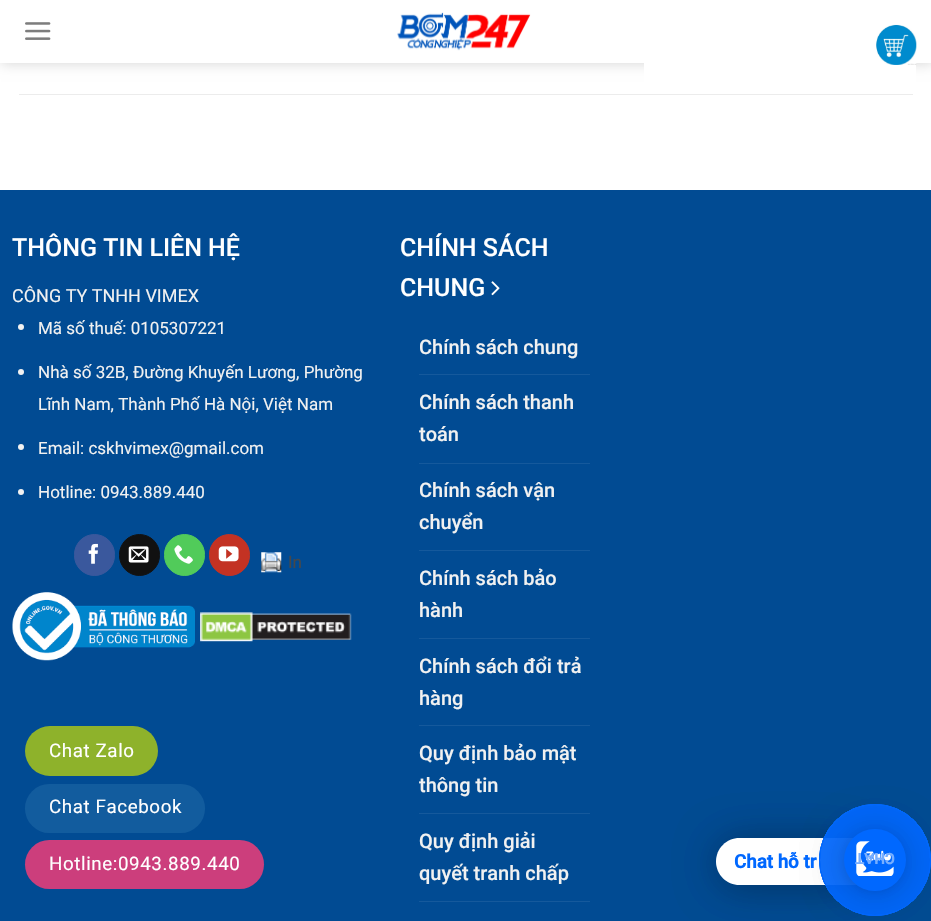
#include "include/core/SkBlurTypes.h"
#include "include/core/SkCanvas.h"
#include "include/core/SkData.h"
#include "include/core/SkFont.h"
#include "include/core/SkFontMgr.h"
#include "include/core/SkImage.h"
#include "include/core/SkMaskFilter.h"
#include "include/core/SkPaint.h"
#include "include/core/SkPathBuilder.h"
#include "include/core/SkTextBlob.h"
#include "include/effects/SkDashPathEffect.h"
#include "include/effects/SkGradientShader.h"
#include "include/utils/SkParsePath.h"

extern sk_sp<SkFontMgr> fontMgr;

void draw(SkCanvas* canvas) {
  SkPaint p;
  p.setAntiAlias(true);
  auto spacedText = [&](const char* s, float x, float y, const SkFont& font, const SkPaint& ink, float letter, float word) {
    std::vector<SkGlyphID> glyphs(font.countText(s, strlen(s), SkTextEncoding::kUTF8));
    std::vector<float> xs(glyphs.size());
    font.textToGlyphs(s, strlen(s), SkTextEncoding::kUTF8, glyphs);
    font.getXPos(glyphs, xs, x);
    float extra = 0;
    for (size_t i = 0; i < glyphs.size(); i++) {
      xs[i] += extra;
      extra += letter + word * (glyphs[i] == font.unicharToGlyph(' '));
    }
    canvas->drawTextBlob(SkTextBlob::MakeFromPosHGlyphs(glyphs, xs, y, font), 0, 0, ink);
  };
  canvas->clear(SK_ColorWHITE);
  canvas->save();
  canvas->clipPath(SkPathBuilder(SkPathFillType::kEvenOdd).moveTo(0, 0).lineTo(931, 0).lineTo(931, 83).lineTo(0, 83).close().moveTo(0, 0).lineTo(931, 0).lineTo(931, 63).lineTo(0, 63).close().detach(), true);
  p.setColor(SkColorSetARGB(38, 0, 0, 0));
  p.setMaskFilter(SkMaskFilter::MakeBlur(kNormal_SkBlurStyle, 6));
  canvas->drawRect(SkRect::MakeLTRB(1, 1, 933, 64), p);
  p.setMaskFilter(nullptr);
  canvas->restore();
  canvas->drawImageRect(SkImages::DeferredFromEncodedData(SkData::MakeFromFileName("images/1.png")), SkRect::MakeLTRB(25, 22, 51, 40), SkSamplingOptions());
  canvas->drawImageRect(SkImages::DeferredFromEncodedData(SkData::MakeFromFileName("images/2.png")), SkRect::MakeLTRB(397, 12, 531, 51), SkSamplingOptions());
  p.setColor(SkColorSetARGB(230, 255, 255, 255));
  canvas->drawRect(SkRect::MakeLTRB(0, 62, 931, 63), p);
  p.setColor(SK_ColorWHITE);
  canvas->drawRoundRect(SkRect::MakeLTRB(644, 0, 916, 88), 6, 6, p);
  canvas->drawImageRect(SkImages::DeferredFromEncodedData(SkData::MakeFromFileName("images/3.png")), SkRect::MakeLTRB(876, 24, 917, 65), SkSamplingOptions());
  p.setColor(SkColorSetRGB(236, 236, 236));
  canvas->drawRect(SkRect::MakeLTRB(19, 94, 913, 95), p);
  p.setColor(SkColorSetRGB(1, 75, 147));
  canvas->drawRect(SkRect::MakeLTRB(0, 190, 931, 921), p);
  p.setColor(SkColorSetRGB(241, 241, 241));
  canvas->drawCircle(21, 327, 3, p);
  canvas->drawCircle(21, 372, 3, p);
  canvas->drawCircle(21, 447, 3, p);
  canvas->drawCircle(21, 492, 3, p);
  p.setColor(SkColorSetRGB(58, 88, 157));
  canvas->drawRoundRect(SkRect::MakeLTRB(74.5f, 534.5f, 114.5f, 575.5f), 20, 20, p);
  p.setStyle(SkPaint::kStroke_Style);
  p.setStrokeWidth(1);
  canvas->drawRoundRect(SkRect::MakeLTRB(74.5f, 534.5f, 114.5f, 575.5f), 20, 20, p);
  canvas->drawImageRect(SkImages::DeferredFromEncodedData(SkData::MakeFromFileName("images/4.png")), SkRect::MakeLTRB(88, 543, 98, 564), SkSamplingOptions());
  p.setStyle(SkPaint::kFill_Style);
  p.setColor(SkColorSetRGB(17, 17, 17));
  canvas->drawRoundRect(SkRect::MakeLTRB(119.5f, 534.5f, 159.5f, 575.5f), 20, 20, p);
  p.setStyle(SkPaint::kStroke_Style);
  canvas->drawRoundRect(SkRect::MakeLTRB(119.5f, 534.5f, 159.5f, 575.5f), 20, 20, p);
  canvas->drawImageRect(SkImages::DeferredFromEncodedData(SkData::MakeFromFileName("images/5.png")), SkRect::MakeLTRB(128, 546, 149, 563), SkSamplingOptions());
  p.setStyle(SkPaint::kFill_Style);
  p.setColor(SkColorSetRGB(81, 203, 90));
  canvas->drawRoundRect(SkRect::MakeLTRB(164.5f, 534.5f, 204.5f, 575.5f), 20, 20, p);
  p.setStyle(SkPaint::kStroke_Style);
  canvas->drawRoundRect(SkRect::MakeLTRB(164.5f, 534.5f, 204.5f, 575.5f), 20, 20, p);
  canvas->drawImageRect(SkImages::DeferredFromEncodedData(SkData::MakeFromFileName("images/6.png")), SkRect::MakeLTRB(174, 545, 193, 564), SkSamplingOptions());
  p.setStyle(SkPaint::kFill_Style);
  p.setColor(SkColorSetRGB(195, 50, 35));
  canvas->drawRoundRect(SkRect::MakeLTRB(209.5f, 534.5f, 249.5f, 575.5f), 20, 20, p);
  p.setStyle(SkPaint::kStroke_Style);
  canvas->drawRoundRect(SkRect::MakeLTRB(209.5f, 534.5f, 249.5f, 575.5f), 20, 20, p);
  canvas->drawImageRect(SkImages::DeferredFromEncodedData(SkData::MakeFromFileName("images/7.png")), SkRect::MakeLTRB(218, 546, 239, 562), SkSamplingOptions());
  canvas->drawImageRect(SkImages::DeferredFromEncodedData(SkData::MakeFromFileName("images/8.png")), SkRect::MakeLTRB(261, 552, 282, 573), SkSamplingOptions());
  canvas->drawImageRect(SkImages::DeferredFromEncodedData(SkData::MakeFromFileName("images/9.png")), SkRect::MakeLTRB(12, 592, 195, 661), SkSamplingOptions());
  canvas->drawImageRect(SkImages::DeferredFromEncodedData(SkData::MakeFromFileName("images/10.png")), SkRect::MakeLTRB(200, 612, 352, 642), SkSamplingOptions());
  canvas->drawImageRect(SkImages::DeferredFromEncodedData(SkData::MakeFromFileName("images/11.png")), SkRect::MakeLTRB(491, 281, 500, 296), SkSamplingOptions());
  p.setStyle(SkPaint::kFill_Style);
  p.setColor(SkColorSetRGB(21, 89, 156));
  canvas->drawRect(SkRect::MakeLTRB(419, 374, 590, 375), p);
  canvas->drawRect(SkRect::MakeLTRB(419, 463, 590, 464), p);
  canvas->drawRect(SkRect::MakeLTRB(419, 550, 590, 551), p);
  canvas->drawRect(SkRect::MakeLTRB(419, 638, 590, 639), p);
  canvas->drawRect(SkRect::MakeLTRB(419, 725, 590, 726), p);
  canvas->drawRect(SkRect::MakeLTRB(419, 813, 590, 814), p);
  canvas->drawRect(SkRect::MakeLTRB(419, 901, 590, 902), p);
  p.setColor(SkColorSetRGB(142, 178, 43));
  canvas->drawRoundRect(SkRect::MakeLTRB(25, 726, 158, 776), 25, 25, p);
  p.setColor(SkColorSetRGB(18, 92, 158));
  canvas->drawRoundRect(SkRect::MakeLTRB(25, 784, 205, 833), 24.5f, 24.5f, p);
  p.setColor(SkColorSetRGB(204, 62, 124));
  canvas->drawRoundRect(SkRect::MakeLTRB(25, 840, 264, 889), 24.5f, 24.5f, p);
  p.setColor(SkColorSetARGB(41, 0, 0, 0));
  p.setMaskFilter(SkMaskFilter::MakeBlur(kNormal_SkBlurStyle, 20));
  canvas->drawRoundRect(SkRect::MakeLTRB(716, 840, 859, 888), 24, 24, p);
  p.setMaskFilter(nullptr);
  p.setMaskFilter(SkMaskFilter::MakeBlur(kNormal_SkBlurStyle, 20));
  canvas->drawRoundRect(SkRect::MakeLTRB(716, 840, 859, 888), 24, 24, p);
  p.setMaskFilter(nullptr);
  p.setColor(SK_ColorWHITE);
  canvas->drawPath(SkPathBuilder().moveTo(739.5f, 838).lineTo(859, 838).lineTo(859, 885).lineTo(739.5f, 885).cubicTo(726.5f, 885, 716, 874.5f, 716, 861.5f).cubicTo(716, 848.5f, 726.5f, 838, 739.5f, 838).close().detach(), p);
  p.setColor(SkColorSetARGB(128, 0, 104, 255));
  canvas->drawCircle(875, 860, 55.5f, p);
  p.setStyle(SkPaint::kStroke_Style);
  p.setColor(SkColorSetRGB(0, 104, 255));
  canvas->drawCircle(875, 860, 55.5f, p);
  p.setStyle(SkPaint::kFill_Style);
  p.setColor(SkColorSetARGB(128, 0, 104, 255));
  canvas->drawCircle(875, 860, 55.5f, p);
  p.setStyle(SkPaint::kStroke_Style);
  p.setColor(SkColorSetRGB(0, 104, 255));
  canvas->drawCircle(875, 860, 55.5f, p);
  p.setStyle(SkPaint::kFill_Style);
  p.setColor(SkColorSetARGB(41, 0, 0, 0));
  p.setMaskFilter(SkMaskFilter::MakeBlur(kNormal_SkBlurStyle, 20));
  canvas->drawRoundRect(SkRect::MakeLTRB(844, 831, 906, 894), 31, 31, p);
  p.setMaskFilter(nullptr);
  p.setColor(SkColorSetARGB(15, 0, 0, 0));
  p.setMaskFilter(SkMaskFilter::MakeBlur(kNormal_SkBlurStyle, 4));
  canvas->drawRoundRect(SkRect::MakeLTRB(844, 830, 906, 893), 31, 31, p);
  p.setMaskFilter(nullptr);
  p.setColor(SkColorSetARGB(128, 0, 104, 255));
  canvas->drawCircle(875, 860, 55.5f, p);
  p.setStyle(SkPaint::kStroke_Style);
  p.setColor(SkColorSetRGB(0, 104, 255));
  canvas->drawCircle(875, 860, 55.5f, p);
  p.setStyle(SkPaint::kFill_Style);
  p.setColor(SkColorSetARGB(128, 0, 104, 255));
  canvas->drawCircle(875, 860, 55.5f, p);
  p.setStyle(SkPaint::kStroke_Style);
  p.setColor(SkColorSetRGB(0, 104, 255));
  canvas->drawCircle(875, 860, 55.5f, p);
  p.setStyle(SkPaint::kFill_Style);
  p.setColor(SkColorSetARGB(41, 0, 0, 0));
  p.setMaskFilter(SkMaskFilter::MakeBlur(kNormal_SkBlurStyle, 20));
  canvas->drawRoundRect(SkRect::MakeLTRB(844, 831, 906, 894), 31, 31, p);
  p.setMaskFilter(nullptr);
  p.setColor(SkColorSetARGB(15, 0, 0, 0));
  p.setMaskFilter(SkMaskFilter::MakeBlur(kNormal_SkBlurStyle, 4));
  canvas->drawRoundRect(SkRect::MakeLTRB(844, 830, 906, 893), 31, 31, p);
  p.setMaskFilter(nullptr);
  p.setColor(SkColorSetRGB(0, 104, 255));
  canvas->drawCircle(875, 860, 31, p);
  canvas->drawImageRect(SkImages::DeferredFromEncodedData(SkData::MakeFromFileName("images/12.png")), SkRect::MakeLTRB(856, 841, 894, 876), SkSamplingOptions());
  SkFont font1(fontMgr->matchFamilyStyle("Roboto", SkFontStyle(500, SkFontStyle::kNormal_Width, SkFontStyle::kUpright_Slant)), 25);
  font1.setSubpixel(true);
  p.setColor(SK_ColorWHITE);
  canvas->drawString("THÔNG TIN LIÊN HỆ", 12, 256, font1, p);
  SkFont font2(fontMgr->matchFamilyStyle("Roboto", SkFontStyle::Normal()), 18);
  font2.setSubpixel(true);
  p.setColor(SkColorSetRGB(241, 241, 241));
  canvas->drawString("CÔNG TY TNHH VIMEX", 12, 302, font2, p);
  SkFont font3(fontMgr->matchFamilyStyle("Roboto", SkFontStyle::Normal()), 17);
  font3.setSubpixel(true);
  canvas->drawString("Mã số thuế: 0105307221", 38, 334, font3, p);
  canvas->drawString("Nhà số 32B, Đường Khuyến Lương, Phường", 38, 378, font3, p);
  canvas->drawString("Lĩnh Nam, Thành Phố Hà Nội, Việt Nam", 38, 410, font3, p);
  canvas->drawString("Email: cskhvimex@gmail.com", 38, 454, font3, p);
  canvas->drawString("Hotline: 0943.889.440", 38, 498, font3, p);
  p.setColor(SkColorSetRGB(72, 72, 72));
  canvas->drawString("In", 288, 568, font3, p);
  p.setColor(SK_ColorWHITE);
  canvas->drawString("CHÍNH SÁCH", 400, 256, font1, p);
  canvas->drawString("CHUNG", 400, 296, font1, p);
  SkFont font4(fontMgr->matchFamilyStyle("Roboto", SkFontStyle(500, SkFontStyle::kNormal_Width, SkFontStyle::kUpright_Slant)), 20);
  font4.setSubpixel(true);
  p.setColor(SkColorSetRGB(241, 241, 241));
  canvas->drawString("Chính sách chung", 419, 354, font4, p);
  canvas->drawString("Chính sách thanh", 419, 409, font4, p);
  canvas->drawString("toán", 419, 441, font4, p);
  canvas->drawString("Chính sách vận", 419, 497, font4, p);
  canvas->drawString("chuyển", 419, 529, font4, p);
  canvas->drawString("Chính sách bảo", 419, 585, font4, p);
  canvas->drawString("hành", 419, 617, font4, p);
  canvas->drawString("Chính sách đổi trả", 419, 673, font4, p);
  canvas->drawString("hàng", 419, 705, font4, p);
  canvas->drawString("Quy định bảo mật", 419, 760, font4, p);
  canvas->drawString("thông tin", 419, 792, font4, p);
  canvas->drawString("Quy định giải", 419, 848, font4, p);
  canvas->drawString("quyết tranh chấp", 419, 880, font4, p);
  SkFont font5(fontMgr->matchFamilyStyle("Roboto", SkFontStyle::Normal()), 18.75f);
  font5.setSubpixel(true);
  p.setColor(SK_ColorWHITE);
  spacedText("Chat Zalo", 49, 757, font5, p, 0.6f, 0);
  spacedText("Chat Facebook", 49, 813, font5, p, 0.6f, 0);
  spacedText("Hotline:0943.889.440", 49, 870, font5, p, 0.6f, 0);
  SkFont font6(fontMgr->matchFamilyStyle("Roboto", SkFontStyle::Bold()), 18.75f);
  font6.setSubpixel(true);
  p.setColor(SkColorSetRGB(0, 104, 255));
  canvas->drawString("Chat hỗ tr", 734, 868, font6, p);
  SkFont font7(fontMgr->matchFamilyStyle("Roboto", SkFontStyle::Bold()), 15);
  font7.setSubpixel(true);
  p.setColor(SkColorSetRGB(119, 174, 255));
  canvas->save();
  canvas->rotate(180, 895, 853);
  canvas->drawString("CHAT", 895, 853, font7, p);
  canvas->restore();
}
